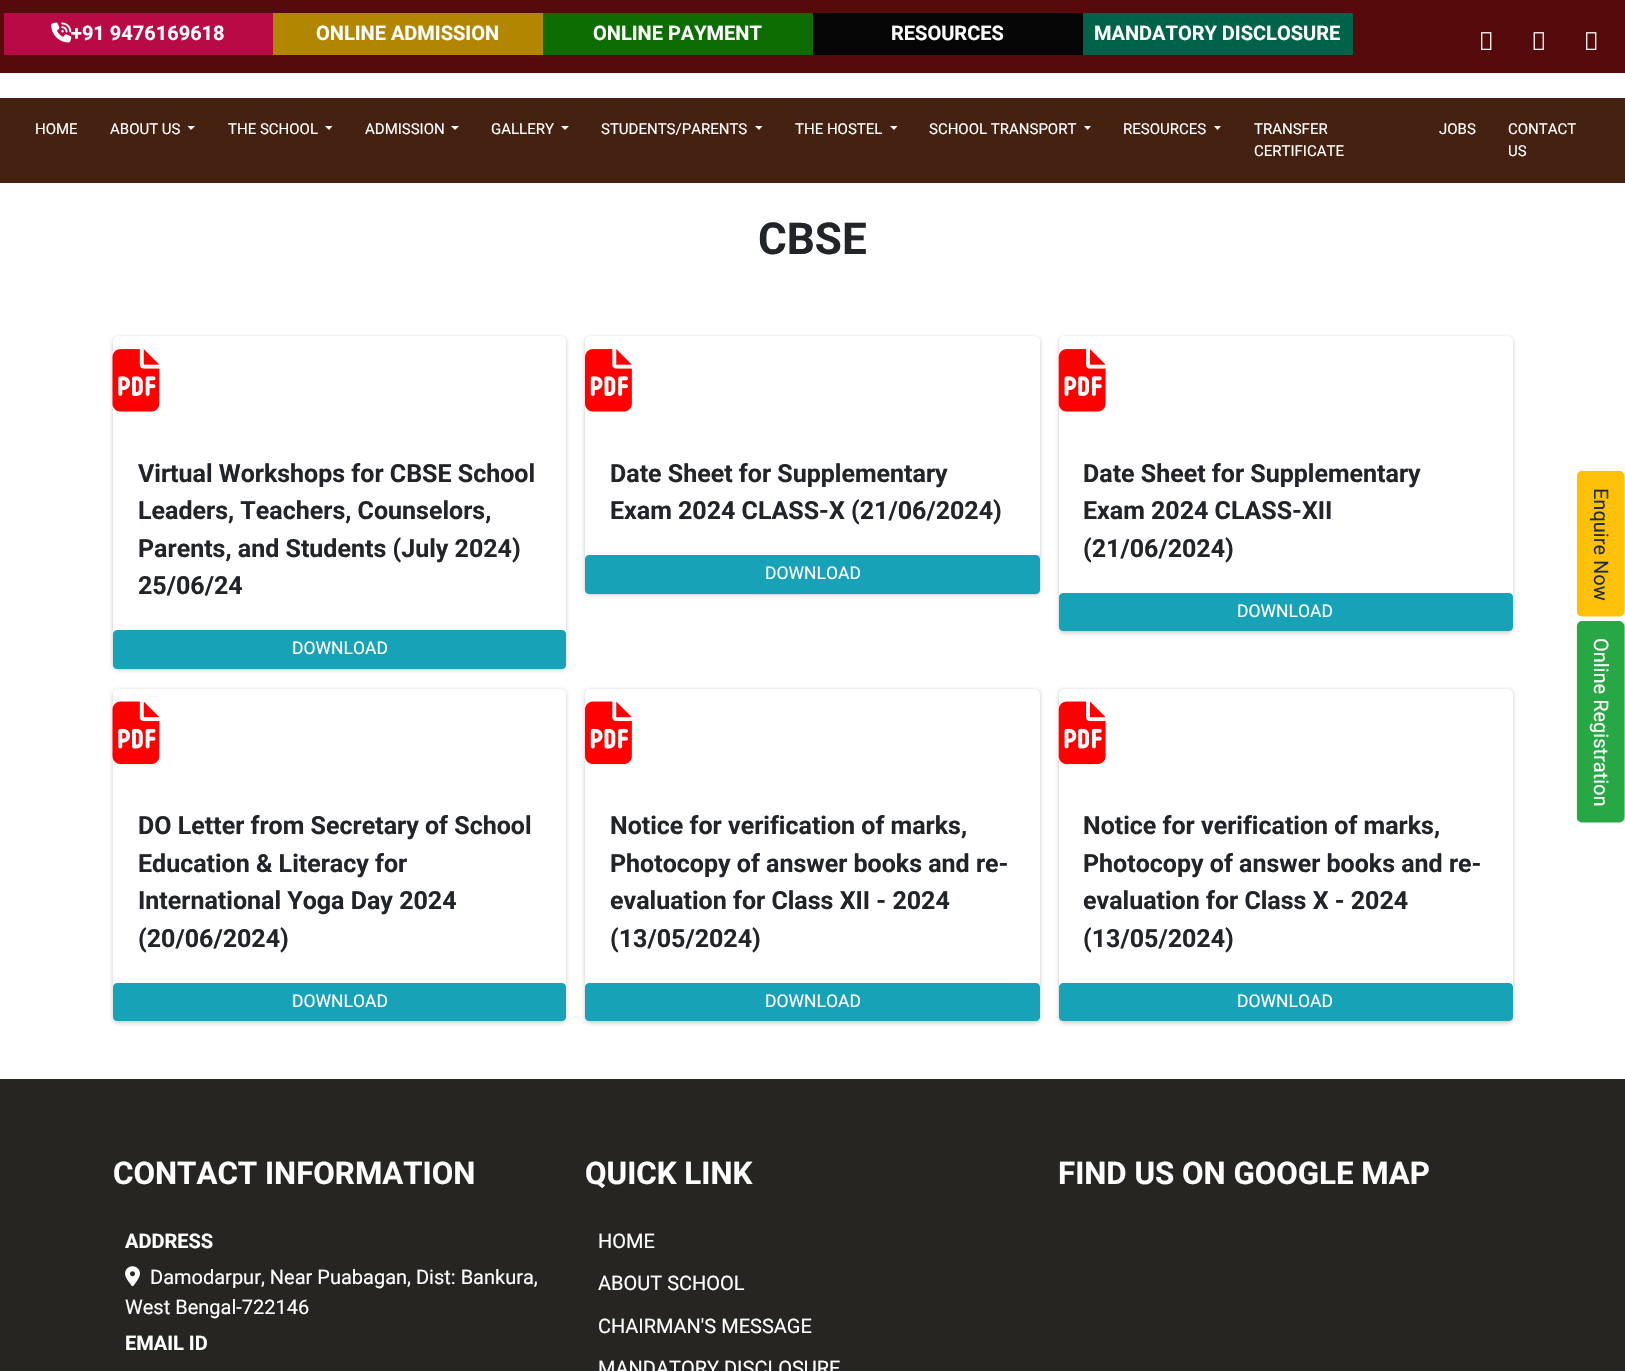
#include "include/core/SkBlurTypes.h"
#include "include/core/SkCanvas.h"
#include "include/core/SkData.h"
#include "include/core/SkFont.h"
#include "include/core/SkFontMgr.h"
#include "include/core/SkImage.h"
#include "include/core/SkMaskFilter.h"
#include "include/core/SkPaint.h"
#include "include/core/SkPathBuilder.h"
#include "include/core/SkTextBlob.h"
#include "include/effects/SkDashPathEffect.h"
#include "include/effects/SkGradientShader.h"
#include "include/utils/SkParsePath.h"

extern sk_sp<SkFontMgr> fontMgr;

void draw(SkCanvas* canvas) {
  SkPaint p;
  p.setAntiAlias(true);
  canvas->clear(SK_ColorWHITE);
  p.setColor(SkColorSetRGB(85, 11, 11));
  canvas->drawRect(SkRect::MakeLTRB(0, 0, 1625, 73), p);
  p.setColor(SkColorSetRGB(184, 10, 68));
  canvas->drawRect(SkRect::MakeLTRB(4, 13, 273, 55), p);
  canvas->drawImageRect(SkImages::DeferredFromEncodedData(SkData::MakeFromFileName("images/1.png")), SkRect::MakeLTRB(51, 22, 72, 43), SkSamplingOptions());
  p.setColor(SkColorSetRGB(178, 134, 0));
  canvas->drawRect(SkRect::MakeLTRB(273, 13, 543, 55), p);
  p.setColor(SkColorSetRGB(13, 109, 3));
  canvas->drawRect(SkRect::MakeLTRB(543, 13, 813, 55), p);
  p.setColor(SkColorSetRGB(5, 5, 5));
  canvas->drawRect(SkRect::MakeLTRB(813, 13, 1083, 55), p);
  p.setColor(SkColorSetRGB(0, 98, 72));
  canvas->drawRect(SkRect::MakeLTRB(1083, 13, 1353, 55), p);
  canvas->drawImageRect(SkImages::DeferredFromEncodedData(SkData::MakeFromFileName("images/2.png")), SkRect::MakeLTRB(1481, 32, 1492, 50), SkSamplingOptions());
  canvas->drawImageRect(SkImages::DeferredFromEncodedData(SkData::MakeFromFileName("images/3.png")), SkRect::MakeLTRB(1533, 32, 1544, 50), SkSamplingOptions());
  canvas->drawImageRect(SkImages::DeferredFromEncodedData(SkData::MakeFromFileName("images/2.png")), SkRect::MakeLTRB(1586, 32, 1597, 50), SkSamplingOptions());
  p.setColor(SkColorSetRGB(68, 33, 16));
  canvas->drawRect(SkRect::MakeLTRB(0, 98, 1625, 183), p);
  p.setColor(SK_ColorWHITE);
  canvas->drawPath(SkPathBuilder().moveTo(187.5f, 126).lineTo(195, 126).lineTo(191, 130).close().detach(), p);
  canvas->drawPath(SkPathBuilder().moveTo(325, 126).lineTo(332.5f, 126).lineTo(329, 130).close().detach(), p);
  canvas->drawPath(SkPathBuilder().moveTo(451, 126).lineTo(459, 126).lineTo(455, 130).close().detach(), p);
  canvas->drawPath(SkPathBuilder().moveTo(561, 126).lineTo(569, 126).lineTo(565, 130).close().detach(), p);
  canvas->drawPath(SkPathBuilder().moveTo(755, 126).lineTo(762.5f, 126).lineTo(759, 130).close().detach(), p);
  canvas->drawPath(SkPathBuilder().moveTo(890, 126).lineTo(897.5f, 126).lineTo(894, 130).close().detach(), p);
  canvas->drawPath(SkPathBuilder().moveTo(1084, 126).lineTo(1091, 126).lineTo(1087.5f, 130).close().detach(), p);
  canvas->drawPath(SkPathBuilder().moveTo(1214, 126).lineTo(1221, 126).lineTo(1217.5f, 130).close().detach(), p);
  p.setColor(SkColorSetARGB(51, 0, 0, 0));
  p.setMaskFilter(SkMaskFilter::MakeBlur(kNormal_SkBlurStyle, 2));
  canvas->drawRoundRect(SkRect::MakeLTRB(113, 338, 566, 670), 5, 5, p);
  p.setMaskFilter(nullptr);
  p.setColor(SkColorSetARGB(31, 0, 0, 0));
  p.setMaskFilter(SkMaskFilter::MakeBlur(kNormal_SkBlurStyle, 0.5f));
  canvas->drawRoundRect(SkRect::MakeLTRB(113, 336, 566, 669), 5, 5, p);
  p.setMaskFilter(nullptr);
  p.setColor(SK_ColorWHITE);
  canvas->drawRoundRect(SkRect::MakeLTRB(113, 336, 566, 669), 5, 5, p);
  canvas->drawImageRect(SkImages::DeferredFromEncodedData(SkData::MakeFromFileName("images/4.png")), SkRect::MakeLTRB(112, 349, 160, 412), SkSamplingOptions());
  p.setColor(SkColorSetRGB(23, 162, 184));
  canvas->drawRoundRect(SkRect::MakeLTRB(113.5f, 630.5f, 565.5f, 668.5f), 3.5f, 3.5f, p);
  p.setStyle(SkPaint::kStroke_Style);
  p.setStrokeWidth(1);
  canvas->drawRoundRect(SkRect::MakeLTRB(113.5f, 630.5f, 565.5f, 668.5f), 3.5f, 3.5f, p);
  p.setStyle(SkPaint::kFill_Style);
  p.setColor(SkColorSetARGB(51, 0, 0, 0));
  p.setMaskFilter(SkMaskFilter::MakeBlur(kNormal_SkBlurStyle, 2));
  canvas->drawRoundRect(SkRect::MakeLTRB(585, 338, 1040, 595), 5, 5, p);
  p.setMaskFilter(nullptr);
  p.setColor(SkColorSetARGB(31, 0, 0, 0));
  p.setMaskFilter(SkMaskFilter::MakeBlur(kNormal_SkBlurStyle, 0.5f));
  canvas->drawRoundRect(SkRect::MakeLTRB(585, 336, 1040, 594), 5, 5, p);
  p.setMaskFilter(nullptr);
  p.setColor(SK_ColorWHITE);
  canvas->drawRoundRect(SkRect::MakeLTRB(585, 336, 1040, 594), 5, 5, p);
  canvas->drawImageRect(SkImages::DeferredFromEncodedData(SkData::MakeFromFileName("images/5.png")), SkRect::MakeLTRB(585, 349, 632, 412), SkSamplingOptions());
  p.setColor(SkColorSetRGB(23, 162, 184));
  canvas->drawRoundRect(SkRect::MakeLTRB(585.5f, 555.5f, 1039.5f, 593.5f), 3.5f, 3.5f, p);
  p.setStyle(SkPaint::kStroke_Style);
  canvas->drawRoundRect(SkRect::MakeLTRB(585.5f, 555.5f, 1039.5f, 593.5f), 3.5f, 3.5f, p);
  p.setStyle(SkPaint::kFill_Style);
  p.setColor(SkColorSetARGB(51, 0, 0, 0));
  p.setMaskFilter(SkMaskFilter::MakeBlur(kNormal_SkBlurStyle, 2));
  canvas->drawRoundRect(SkRect::MakeLTRB(1059, 338, 1513, 633), 5, 5, p);
  p.setMaskFilter(nullptr);
  p.setColor(SkColorSetARGB(31, 0, 0, 0));
  p.setMaskFilter(SkMaskFilter::MakeBlur(kNormal_SkBlurStyle, 0.5f));
  canvas->drawRoundRect(SkRect::MakeLTRB(1059, 336, 1513, 631), 5, 5, p);
  p.setMaskFilter(nullptr);
  p.setColor(SK_ColorWHITE);
  canvas->drawRoundRect(SkRect::MakeLTRB(1059, 336, 1513, 631), 5, 5, p);
  canvas->drawImageRect(SkImages::DeferredFromEncodedData(SkData::MakeFromFileName("images/6.png")), SkRect::MakeLTRB(1058, 349, 1106, 412), SkSamplingOptions());
  p.setColor(SkColorSetRGB(23, 162, 184));
  canvas->drawRoundRect(SkRect::MakeLTRB(1059.5f, 593.5f, 1512.5f, 630.5f), 3.5f, 3.5f, p);
  p.setStyle(SkPaint::kStroke_Style);
  canvas->drawRoundRect(SkRect::MakeLTRB(1059.5f, 593.5f, 1512.5f, 630.5f), 3.5f, 3.5f, p);
  p.setStyle(SkPaint::kFill_Style);
  p.setColor(SkColorSetARGB(51, 0, 0, 0));
  p.setMaskFilter(SkMaskFilter::MakeBlur(kNormal_SkBlurStyle, 2));
  canvas->drawRoundRect(SkRect::MakeLTRB(113, 690, 566, 1023), 5, 5, p);
  p.setMaskFilter(nullptr);
  p.setColor(SK_ColorWHITE);
  canvas->drawRoundRect(SkRect::MakeLTRB(113, 689, 566, 1021), 5, 5, p);
  canvas->drawImageRect(SkImages::DeferredFromEncodedData(SkData::MakeFromFileName("images/7.png")), SkRect::MakeLTRB(112, 701, 160, 765), SkSamplingOptions());
  p.setColor(SkColorSetRGB(23, 162, 184));
  canvas->drawRoundRect(SkRect::MakeLTRB(113.5f, 983.5f, 565.5f, 1020.5f), 3.5f, 3.5f, p);
  p.setStyle(SkPaint::kStroke_Style);
  canvas->drawRoundRect(SkRect::MakeLTRB(113.5f, 983.5f, 565.5f, 1020.5f), 3.5f, 3.5f, p);
  p.setStyle(SkPaint::kFill_Style);
  p.setColor(SkColorSetARGB(51, 0, 0, 0));
  p.setMaskFilter(SkMaskFilter::MakeBlur(kNormal_SkBlurStyle, 2));
  canvas->drawRoundRect(SkRect::MakeLTRB(585, 690, 1040, 1023), 5, 5, p);
  p.setMaskFilter(nullptr);
  p.setColor(SkColorSetARGB(31, 0, 0, 0));
  p.setMaskFilter(SkMaskFilter::MakeBlur(kNormal_SkBlurStyle, 0.5f));
  canvas->drawRoundRect(SkRect::MakeLTRB(585, 689, 1040, 1021), 5, 5, p);
  p.setMaskFilter(nullptr);
  p.setColor(SK_ColorWHITE);
  canvas->drawRoundRect(SkRect::MakeLTRB(585, 689, 1040, 1021), 5, 5, p);
  canvas->drawImageRect(SkImages::DeferredFromEncodedData(SkData::MakeFromFileName("images/8.png")), SkRect::MakeLTRB(585, 701, 632, 765), SkSamplingOptions());
  p.setColor(SkColorSetRGB(23, 162, 184));
  canvas->drawRoundRect(SkRect::MakeLTRB(585.5f, 983.5f, 1039.5f, 1020.5f), 3.5f, 3.5f, p);
  p.setStyle(SkPaint::kStroke_Style);
  canvas->drawRoundRect(SkRect::MakeLTRB(585.5f, 983.5f, 1039.5f, 1020.5f), 3.5f, 3.5f, p);
  p.setStyle(SkPaint::kFill_Style);
  p.setColor(SkColorSetARGB(51, 0, 0, 0));
  p.setMaskFilter(SkMaskFilter::MakeBlur(kNormal_SkBlurStyle, 2));
  canvas->drawRoundRect(SkRect::MakeLTRB(1059, 690, 1513, 1023), 5, 5, p);
  p.setMaskFilter(nullptr);
  p.setColor(SkColorSetARGB(31, 0, 0, 0));
  p.setMaskFilter(SkMaskFilter::MakeBlur(kNormal_SkBlurStyle, 0.5f));
  canvas->drawRoundRect(SkRect::MakeLTRB(1059, 689, 1513, 1021), 5, 5, p);
  p.setMaskFilter(nullptr);
  p.setColor(SK_ColorWHITE);
  canvas->drawRoundRect(SkRect::MakeLTRB(1059, 689, 1513, 1021), 5, 5, p);
  canvas->drawImageRect(SkImages::DeferredFromEncodedData(SkData::MakeFromFileName("images/9.png")), SkRect::MakeLTRB(1058, 701, 1106, 765), SkSamplingOptions());
  p.setColor(SkColorSetRGB(23, 162, 184));
  canvas->drawRoundRect(SkRect::MakeLTRB(1059.5f, 983.5f, 1512.5f, 1020.5f), 3.5f, 3.5f, p);
  p.setStyle(SkPaint::kStroke_Style);
  canvas->drawRoundRect(SkRect::MakeLTRB(1059.5f, 983.5f, 1512.5f, 1020.5f), 3.5f, 3.5f, p);
  p.setStyle(SkPaint::kFill_Style);
  p.setColor(SkColorSetRGB(255, 193, 7));
  canvas->drawPath(SkPathBuilder().moveTo(1624, 476).lineTo(1624, 611).cubicTo(1624, 614, 1622, 616, 1619, 616).lineTo(1582, 616).cubicTo(1579, 616, 1577, 614, 1577, 611).lineTo(1577, 476).cubicTo(1577, 473, 1579, 471, 1582, 471).lineTo(1619, 471).cubicTo(1622, 471, 1624, 473, 1624, 476).close().detach(), p);
  p.setStyle(SkPaint::kStroke_Style);
  p.setStrokeWidth(1.2f);
  canvas->drawPath(SkPathBuilder().moveTo(1624, 476.5f).lineTo(1624, 611.5f).cubicTo(1624, 614, 1622, 616, 1619.5f, 616).lineTo(1582, 616).cubicTo(1579.5f, 616, 1577.5f, 614, 1577.5f, 611.5f).lineTo(1577.5f, 476.5f).cubicTo(1577.5f, 474, 1579.5f, 472, 1582, 472).lineTo(1619.5f, 472).cubicTo(1622, 472, 1624, 474, 1624, 476.5f).close().detach(), p);
  p.setStyle(SkPaint::kFill_Style);
  p.setColor(SkColorSetRGB(40, 167, 69));
  canvas->drawPath(SkPathBuilder().moveTo(1624, 626).lineTo(1624, 817).cubicTo(1624, 820, 1622, 822, 1619, 822).lineTo(1582, 822).cubicTo(1579, 822, 1577, 820, 1577, 817).lineTo(1577, 626).cubicTo(1577, 624, 1579, 621, 1582, 621).lineTo(1619, 621).cubicTo(1622, 621, 1624, 624, 1624, 626).close().detach(), p);
  p.setStyle(SkPaint::kStroke_Style);
  canvas->drawPath(SkPathBuilder().moveTo(1624, 626.5f).lineTo(1624, 817.5f).cubicTo(1624, 820, 1622, 822, 1619.5f, 822).lineTo(1582, 822).cubicTo(1579.5f, 822, 1577.5f, 820, 1577.5f, 817.5f).lineTo(1577.5f, 626.5f).cubicTo(1577.5f, 624, 1579.5f, 622, 1582, 622).lineTo(1619.5f, 622).cubicTo(1622, 622, 1624, 624, 1624, 626.5f).close().detach(), p);
  p.setStyle(SkPaint::kFill_Style);
  p.setColor(SkColorSetRGB(38, 37, 34));
  canvas->drawRect(SkRect::MakeLTRB(0, 1079, 1625, 1371), p);
  canvas->drawImageRect(SkImages::DeferredFromEncodedData(SkData::MakeFromFileName("images/10.png")), SkRect::MakeLTRB(125, 1266, 140, 1287), SkSamplingOptions());
  SkFont font1(fontMgr->matchFamilyStyle("Roboto", SkFontStyle::Bold()), 20);
  font1.setSubpixel(true);
  p.setColor(SK_ColorWHITE);
  canvas->drawString("+91 9476169618", 71, 40, font1, p);
  canvas->drawString("ONLINE ADMISSION", 316, 40, font1, p);
  canvas->drawString("ONLINE PAYMENT", 593, 40, font1, p);
  canvas->drawString("RESOURCES", 891, 40, font1, p);
  canvas->drawString("MANDATORY DISCLOSURE", 1094, 40, font1, p);
  SkFont font2(fontMgr->matchFamilyStyle("Roboto", SkFontStyle::Normal()), 15);
  font2.setSubpixel(true);
  canvas->drawString("HOME", 35, 134, font2, p);
  canvas->drawString("ABOUT US", 110, 134, font2, p);
  canvas->drawString("THE SCHOOL", 228, 134, font2, p);
  canvas->drawString("ADMISSION", 365, 134, font2, p);
  canvas->drawString("GALLERY", 491, 134, font2, p);
  canvas->drawString("STUDENTS/PARENTS", 601, 134, font2, p);
  canvas->drawString("THE HOSTEL", 795, 134, font2, p);
  canvas->drawString("SCHOOL TRANSPORT", 929, 134, font2, p);
  canvas->drawString("RESOURCES", 1123, 134, font2, p);
  canvas->drawString("TRANSFER", 1254, 134, font2, p);
  canvas->drawString("CERTIFICATE", 1254, 156, font2, p);
  canvas->drawString("JOBS", 1439, 134, font2, p);
  canvas->drawString("CONTACT", 1508, 134, font2, p);
  canvas->drawString("US", 1508, 156, font2, p);
  SkFont font3(fontMgr->matchFamilyStyle("Roboto", SkFontStyle::Bold()), 44);
  font3.setSubpixel(true);
  p.setColor(SkColorSetRGB(33, 37, 41));
  canvas->drawString("CBSE", 758, 254, font3, p);
  SkFont font4(fontMgr->matchFamilyStyle("Roboto", SkFontStyle::Bold()), 25);
  font4.setSubpixel(true);
  canvas->drawString("Virtual Workshops for CBSE School", 138, 482, font4, p);
  canvas->drawString("Leaders, Teachers, Counselors,", 138, 519, font4, p);
  canvas->drawString("Parents, and Students (July 2024)", 138, 557, font4, p);
  canvas->drawString("25/06/24", 138, 594, font4, p);
  SkFont font5(fontMgr->matchFamilyStyle("Roboto", SkFontStyle::Normal()), 17.5f);
  font5.setSubpixel(true);
  p.setColor(SK_ColorWHITE);
  canvas->drawString("DOWNLOAD", 292, 654, font5, p);
  p.setColor(SkColorSetRGB(33, 37, 41));
  canvas->drawString("Date Sheet for Supplementary", 610, 482, font4, p);
  canvas->drawString("Exam 2024 CLASS-X (21/06/2024)", 610, 519, font4, p);
  p.setColor(SK_ColorWHITE);
  canvas->drawString("DOWNLOAD", 765, 579, font5, p);
  p.setColor(SkColorSetRGB(33, 37, 41));
  canvas->drawString("Date Sheet for Supplementary", 1083, 482, font4, p);
  canvas->drawString("Exam 2024 CLASS-XII", 1083, 519, font4, p);
  canvas->drawString("(21/06/2024)", 1083, 557, font4, p);
  p.setColor(SK_ColorWHITE);
  canvas->drawString("DOWNLOAD", 1237, 617, font5, p);
  p.setColor(SkColorSetRGB(33, 37, 41));
  canvas->drawString("DO Letter from Secretary of School", 138, 834, font4, p);
  canvas->drawString("Education & Literacy for", 138, 872, font4, p);
  canvas->drawString("International Yoga Day 2024", 138, 909, font4, p);
  canvas->drawString("(20/06/2024)", 138, 947, font4, p);
  p.setColor(SK_ColorWHITE);
  canvas->drawString("DOWNLOAD", 292, 1007, font5, p);
  p.setColor(SkColorSetRGB(33, 37, 41));
  canvas->drawString("Notice for verification of marks,", 610, 834, font4, p);
  canvas->drawString("Photocopy of answer books and re-", 610, 872, font4, p);
  canvas->drawString("evaluation for Class XII - 2024", 610, 909, font4, p);
  canvas->drawString("(13/05/2024)", 610, 947, font4, p);
  p.setColor(SK_ColorWHITE);
  canvas->drawString("DOWNLOAD", 765, 1007, font5, p);
  p.setColor(SkColorSetRGB(33, 37, 41));
  canvas->drawString("Notice for verification of marks,", 1083, 834, font4, p);
  canvas->drawString("Photocopy of answer books and re-", 1083, 872, font4, p);
  canvas->drawString("evaluation for Class X - 2024", 1083, 909, font4, p);
  canvas->drawString("(13/05/2024)", 1083, 947, font4, p);
  p.setColor(SK_ColorWHITE);
  canvas->drawString("DOWNLOAD", 1237, 1007, font5, p);
  SkFont font6(fontMgr->matchFamilyStyle("Roboto", SkFontStyle::Normal()), 20);
  font6.setSubpixel(true);
  p.setColor(SkColorSetRGB(31, 45, 61));
  canvas->save();
  canvas->rotate(90, 1594, 488);
  canvas->drawString("Enquire Now", 1594, 488, font6, p);
  canvas->restore();
  p.setColor(SK_ColorWHITE);
  canvas->save();
  canvas->rotate(90, 1594, 638);
  canvas->drawString("Online Registration", 1594, 638, font6, p);
  canvas->restore();
  SkFont font7(fontMgr->matchFamilyStyle("Roboto", SkFontStyle::Bold()), 31.25f);
  font7.setSubpixel(true);
  canvas->drawString("CONTACT INFORMATION", 113, 1184, font7, p);
  canvas->drawString("ADDRESS", 125, 1248, font1, p);
  canvas->drawString("Damodarpur, Near Puabagan, Dist: Bankura,", 150, 1284, font6, p);
  canvas->drawString("West Bengal-722146", 125, 1314, font6, p);
  canvas->drawString("EMAIL ID", 125, 1350, font1, p);
  canvas->drawString("QUICK LINK", 585, 1184, font7, p);
  canvas->drawString("HOME", 598, 1248, font6, p);
  canvas->drawString("ABOUT SCHOOL", 598, 1290, font6, p);
  canvas->drawString("CHAIRMAN'S MESSAGE", 598, 1333, font6, p);
  canvas->drawString("MANDATORY DISCLOSURE", 598, 1375, font6, p);
  canvas->drawString("FIND US ON GOOGLE MAP", 1058, 1184, font7, p);
}
